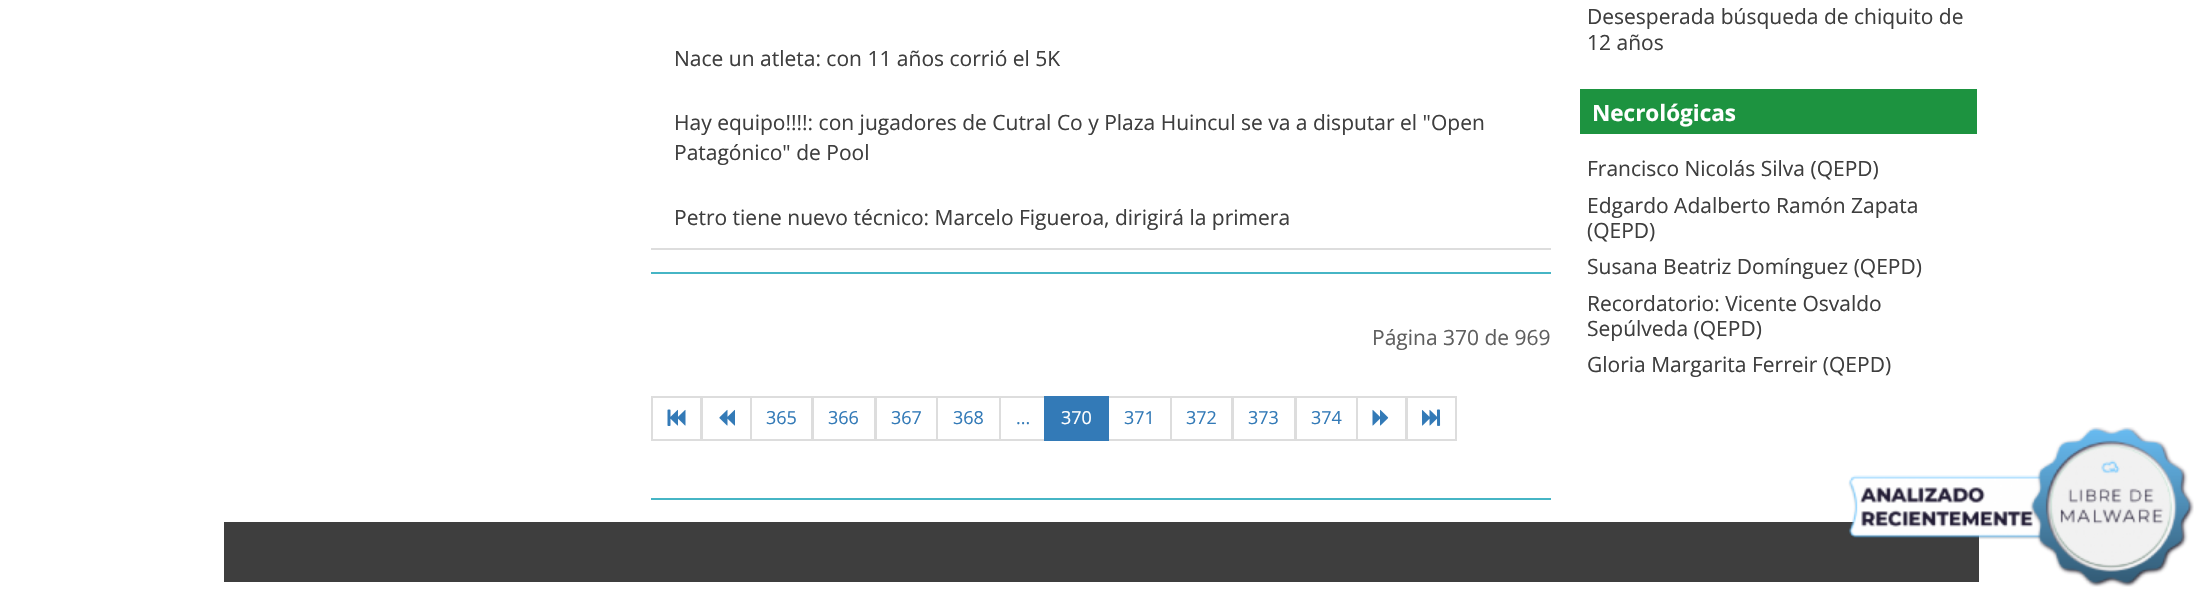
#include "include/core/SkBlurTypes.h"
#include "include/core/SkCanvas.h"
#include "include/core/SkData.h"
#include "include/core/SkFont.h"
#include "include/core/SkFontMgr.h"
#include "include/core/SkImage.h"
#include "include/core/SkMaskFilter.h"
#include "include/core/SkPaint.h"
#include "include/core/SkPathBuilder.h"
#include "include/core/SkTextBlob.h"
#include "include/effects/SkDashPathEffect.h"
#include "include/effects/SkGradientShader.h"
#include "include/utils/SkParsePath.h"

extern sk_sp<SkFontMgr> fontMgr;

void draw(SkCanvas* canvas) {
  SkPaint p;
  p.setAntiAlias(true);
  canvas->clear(SK_ColorWHITE);
  p.setColor(SkColorSetRGB(70, 181, 197));
  canvas->drawRect(SkRect::MakeLTRB(651, 272, 1551, 274), p);
  p.setColor(SkColorSetRGB(221, 221, 221));
  canvas->drawRect(SkRect::MakeLTRB(651, 248, 1551, 250), p);
  p.setColor(SkColorSetRGB(70, 181, 197));
  canvas->drawRect(SkRect::MakeLTRB(651, 498, 1551, 500), p);
  p.setStyle(SkPaint::kStroke_Style);
  p.setStrokeWidth(2);
  p.setColor(SkColorSetRGB(221, 221, 221));
  canvas->drawRect(SkRect::MakeLTRB(652, 397, 701, 440), p);
  canvas->drawImageRect(SkImages::DeferredFromEncodedData(SkData::MakeFromFileName("images/1.png")), SkRect::MakeLTRB(667, 409, 686, 426), SkSamplingOptions());
  canvas->drawRect(SkRect::MakeLTRB(702, 397, 751, 440), p);
  canvas->drawImageRect(SkImages::DeferredFromEncodedData(SkData::MakeFromFileName("images/2.png")), SkRect::MakeLTRB(719, 409, 735, 426), SkSamplingOptions());
  canvas->drawRect(SkRect::MakeLTRB(751, 397, 812, 440), p);
  canvas->drawRect(SkRect::MakeLTRB(813, 397, 875, 440), p);
  canvas->drawRect(SkRect::MakeLTRB(876, 397, 937, 440), p);
  canvas->drawRect(SkRect::MakeLTRB(937, 397, 1000, 440), p);
  canvas->drawRect(SkRect::MakeLTRB(1000, 397, 1045, 440), p);
  canvas->drawRect(SkRect::MakeLTRB(1108, 397, 1171, 440), p);
  p.setStyle(SkPaint::kFill_Style);
  p.setColor(SkColorSetRGB(51, 122, 183));
  canvas->drawRect(SkRect::MakeLTRB(1044, 396, 1109, 441), p);
  p.setStyle(SkPaint::kStroke_Style);
  p.setColor(SkColorSetRGB(221, 221, 221));
  canvas->drawRect(SkRect::MakeLTRB(1171, 397, 1232, 440), p);
  canvas->drawRect(SkRect::MakeLTRB(1233, 397, 1295, 440), p);
  canvas->drawRect(SkRect::MakeLTRB(1296, 397, 1357, 440), p);
  canvas->drawRect(SkRect::MakeLTRB(1357, 397, 1406, 440), p);
  canvas->drawImageRect(SkImages::DeferredFromEncodedData(SkData::MakeFromFileName("images/3.png")), SkRect::MakeLTRB(1372, 409, 1389, 426), SkSamplingOptions());
  canvas->drawRect(SkRect::MakeLTRB(1407, 397, 1456, 440), p);
  canvas->drawImageRect(SkImages::DeferredFromEncodedData(SkData::MakeFromFileName("images/4.png")), SkRect::MakeLTRB(1421, 409, 1441, 426), SkSamplingOptions());
  p.setStyle(SkPaint::kFill_Style);
  p.setColor(SkColorSetRGB(29, 147, 64));
  canvas->drawRect(SkRect::MakeLTRB(1580, 89, 1977, 134), p);
  p.setColor(SkColorSetRGB(62, 62, 62));
  canvas->drawRect(SkRect::MakeLTRB(224, 522, 1979, 582), p);
  canvas->drawImageRect(SkImages::DeferredFromEncodedData(SkData::MakeFromFileName("images/5.png")), SkRect::MakeLTRB(1848, 427, 2194, 587), SkSamplingOptions());
  SkFont font1(fontMgr->matchFamilyStyle("Open Sans", SkFontStyle::Normal()), 21);
  font1.setSubpixel(true);
  canvas->drawString("Nace un atleta: con 11 años corrió el 5K", 674, 66, font1, p);
  canvas->drawString("Hay equipo!!!!: con jugadores de Cutral Co y Plaza Huincul se va a disputar el \"Open", 674, 130, font1, p);
  canvas->drawString("Patagónico\" de Pool", 674, 160, font1, p);
  canvas->drawString("Petro tiene nuevo técnico: Marcelo Figueroa, dirigirá la primera", 674, 225, font1, p);
  p.setColor(SkColorSetRGB(95, 95, 95));
  canvas->drawString("Página 370 de 969", 1372, 345, font1, p);
  SkFont font2(fontMgr->matchFamilyStyle("Open Sans", SkFontStyle::Normal()), 18);
  font2.setSubpixel(true);
  p.setColor(SkColorSetRGB(51, 122, 183));
  canvas->drawString("365", 766, 424, font2, p);
  canvas->drawString("366", 828, 424, font2, p);
  canvas->drawString("367", 891, 424, font2, p);
  canvas->drawString("368", 953, 424, font2, p);
  canvas->drawString("...", 1016, 424, font2, p);
  p.setColor(SK_ColorWHITE);
  canvas->drawString("370", 1061, 424, font2, p);
  p.setColor(SkColorSetRGB(51, 122, 183));
  canvas->drawString("371", 1124, 424, font2, p);
  canvas->drawString("372", 1186, 424, font2, p);
  canvas->drawString("373", 1248, 424, font2, p);
  canvas->drawString("374", 1311, 424, font2, p);
  p.setColor(SkColorSetRGB(62, 62, 62));
  canvas->drawString("Desesperada búsqueda de chiquito de", 1587, 24, font1, p);
  canvas->drawString("12 años", 1587, 50, font1, p);
  SkFont font3(fontMgr->matchFamilyStyle("Open Sans", SkFontStyle::Bold()), 22.5f);
  font3.setSubpixel(true);
  p.setColor(SK_ColorWHITE);
  canvas->drawString("Necrológicas", 1592, 121, font3, p);
  p.setColor(SkColorSetRGB(62, 62, 62));
  canvas->drawString("Francisco Nicolás Silva (QEPD)", 1587, 176, font1, p);
  canvas->drawString("Edgardo Adalberto Ramón Zapata", 1587, 213, font1, p);
  canvas->drawString("(QEPD)", 1587, 238, font1, p);
  canvas->drawString("Susana Beatriz Domínguez (QEPD)", 1587, 274, font1, p);
  canvas->drawString("Recordatorio: Vicente Osvaldo", 1587, 311, font1, p);
  canvas->drawString("Sepúlveda (QEPD)", 1587, 336, font1, p);
  canvas->drawString("Gloria Margarita Ferreir (QEPD)", 1587, 372, font1, p);
}
